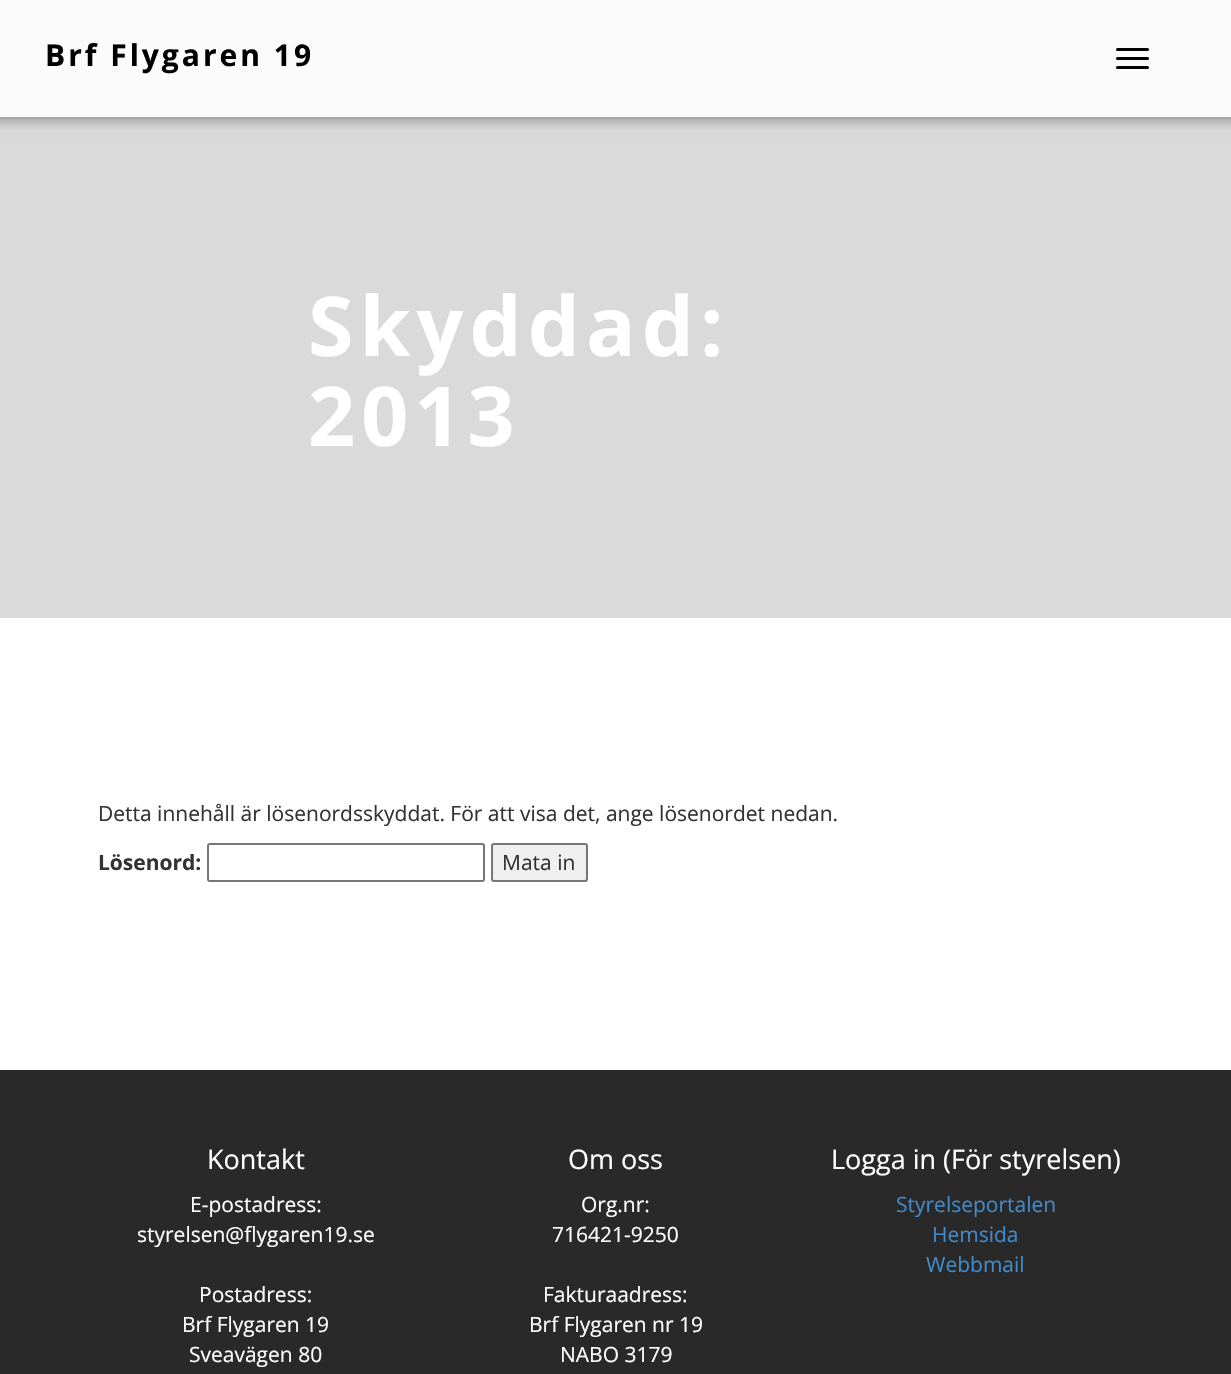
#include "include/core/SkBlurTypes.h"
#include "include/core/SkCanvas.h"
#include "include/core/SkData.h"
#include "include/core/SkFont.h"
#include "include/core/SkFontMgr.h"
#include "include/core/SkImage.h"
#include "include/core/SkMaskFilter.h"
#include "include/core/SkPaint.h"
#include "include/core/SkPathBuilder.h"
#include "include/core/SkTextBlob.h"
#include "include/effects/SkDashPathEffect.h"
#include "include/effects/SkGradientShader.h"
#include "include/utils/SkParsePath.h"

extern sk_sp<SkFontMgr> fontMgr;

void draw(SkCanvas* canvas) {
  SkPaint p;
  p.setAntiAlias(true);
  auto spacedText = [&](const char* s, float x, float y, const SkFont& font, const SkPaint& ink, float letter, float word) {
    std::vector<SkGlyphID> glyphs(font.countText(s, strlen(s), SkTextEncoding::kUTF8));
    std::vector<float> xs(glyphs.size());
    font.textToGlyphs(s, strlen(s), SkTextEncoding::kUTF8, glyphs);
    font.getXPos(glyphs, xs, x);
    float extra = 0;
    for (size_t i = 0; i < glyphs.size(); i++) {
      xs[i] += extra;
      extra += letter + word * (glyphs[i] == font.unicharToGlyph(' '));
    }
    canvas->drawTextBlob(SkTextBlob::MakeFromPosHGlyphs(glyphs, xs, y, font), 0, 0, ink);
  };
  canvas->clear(SK_ColorWHITE);
  p.setColor(SkColorSetRGB(218, 218, 218));
  canvas->drawRect(SkRect::MakeLTRB(0, 117, 1231, 618), p);
  p.setColor(SkColorSetARGB(128, 0, 0, 0));
  p.setMaskFilter(SkMaskFilter::MakeBlur(kNormal_SkBlurStyle, 7.5f));
  canvas->drawRect(SkRect::MakeLTRB(-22, 0, 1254, 117), p);
  p.setMaskFilter(nullptr);
  p.setColor(SkColorSetRGB(251, 251, 251));
  canvas->drawRect(SkRect::MakeLTRB(0, 0, 1231, 117), p);
  p.setColor(SK_ColorBLACK);
  canvas->drawRoundRect(SkRect::MakeLTRB(1116, 48, 1149, 51), 1.5f, 1.5f, p);
  canvas->drawRoundRect(SkRect::MakeLTRB(1116, 57, 1149, 60), 1.5f, 1.5f, p);
  canvas->drawRoundRect(SkRect::MakeLTRB(1116, 66, 1149, 69), 1.5f, 1.5f, p);
  p.setStyle(SkPaint::kStroke_Style);
  p.setStrokeWidth(2);
  p.setColor(SkColorSetRGB(118, 118, 118));
  canvas->drawRoundRect(SkRect::MakeLTRB(208, 844, 484, 881), 2, 2, p);
  p.setStyle(SkPaint::kFill_Style);
  p.setColor(SkColorSetRGB(239, 239, 239));
  canvas->drawRoundRect(SkRect::MakeLTRB(492, 844, 587, 881), 2, 2, p);
  p.setStyle(SkPaint::kStroke_Style);
  p.setColor(SkColorSetRGB(118, 118, 118));
  canvas->drawRoundRect(SkRect::MakeLTRB(492, 844, 587, 881), 2, 2, p);
  p.setStyle(SkPaint::kFill_Style);
  p.setColor(SkColorSetRGB(41, 41, 41));
  canvas->drawRect(SkRect::MakeLTRB(0, 1070, 1231, 1374), p);
  SkFont font1(fontMgr->matchFamilyStyle("Open Sans", SkFontStyle::Bold()), 30);
  font1.setSubpixel(true);
  p.setColor(SK_ColorBLACK);
  spacedText("Brf Flygaren 19", 45, 66, font1, p, 3, 0);
  SkFont font2(fontMgr->matchFamilyStyle("Open Sans", SkFontStyle::Bold()), 82.5f);
  font2.setSubpixel(true);
  p.setColor(SK_ColorWHITE);
  spacedText("Skyddad:", 308, 356, font2, p, 6, 0);
  spacedText("2013", 308, 446, font2, p, 6, 0);
  SkFont font3(fontMgr->matchFamilyStyle("Open Sans", SkFontStyle::Normal()), 21);
  font3.setSubpixel(true);
  p.setColor(SkColorSetRGB(51, 51, 51));
  canvas->drawString("Detta innehåll är lösenordsskyddat. För att visa det, ange lösenordet nedan.", 98, 821, font3, p);
  SkFont font4(fontMgr->matchFamilyStyle("Open Sans", SkFontStyle::Bold()), 21);
  font4.setSubpixel(true);
  canvas->drawString("Lösenord:", 98, 870, font4, p);
  canvas->drawString("Mata in", 502, 870, font3, p);
  SkFont font5(fontMgr->matchFamilyStyle("Open Sans", SkFontStyle::Normal()), 27);
  font5.setSubpixel(true);
  p.setColor(SK_ColorWHITE);
  canvas->drawString("Kontakt", 207, 1169, font5, p);
  canvas->drawString("E-postadress:", 190, 1212, font3, p);
  canvas->drawString("styrelsen@flygaren19.se", 137, 1242, font3, p);
  canvas->drawString("Postadress:", 199, 1302, font3, p);
  canvas->drawString("Brf Flygaren 19", 182, 1332, font3, p);
  canvas->drawString("Sveavägen 80", 189, 1362, font3, p);
  canvas->drawString("Om oss", 568, 1169, font5, p);
  canvas->drawString("Org.nr:", 581, 1212, font3, p);
  canvas->drawString("716421-9250", 552, 1242, font3, p);
  canvas->drawString("Fakturaadress:", 543, 1302, font3, p);
  canvas->drawString("Brf Flygaren nr 19", 529, 1332, font3, p);
  canvas->drawString("NABO 3179", 560, 1362, font3, p);
  canvas->drawString("Logga in (För styrelsen)", 831, 1169, font5, p);
  p.setColor(SkColorSetRGB(66, 139, 202));
  canvas->drawString("Styrelseportalen", 896, 1212, font3, p);
  canvas->drawString("Hemsida", 932, 1242, font3, p);
  canvas->drawString("Webbmail", 926, 1272, font3, p);
}
